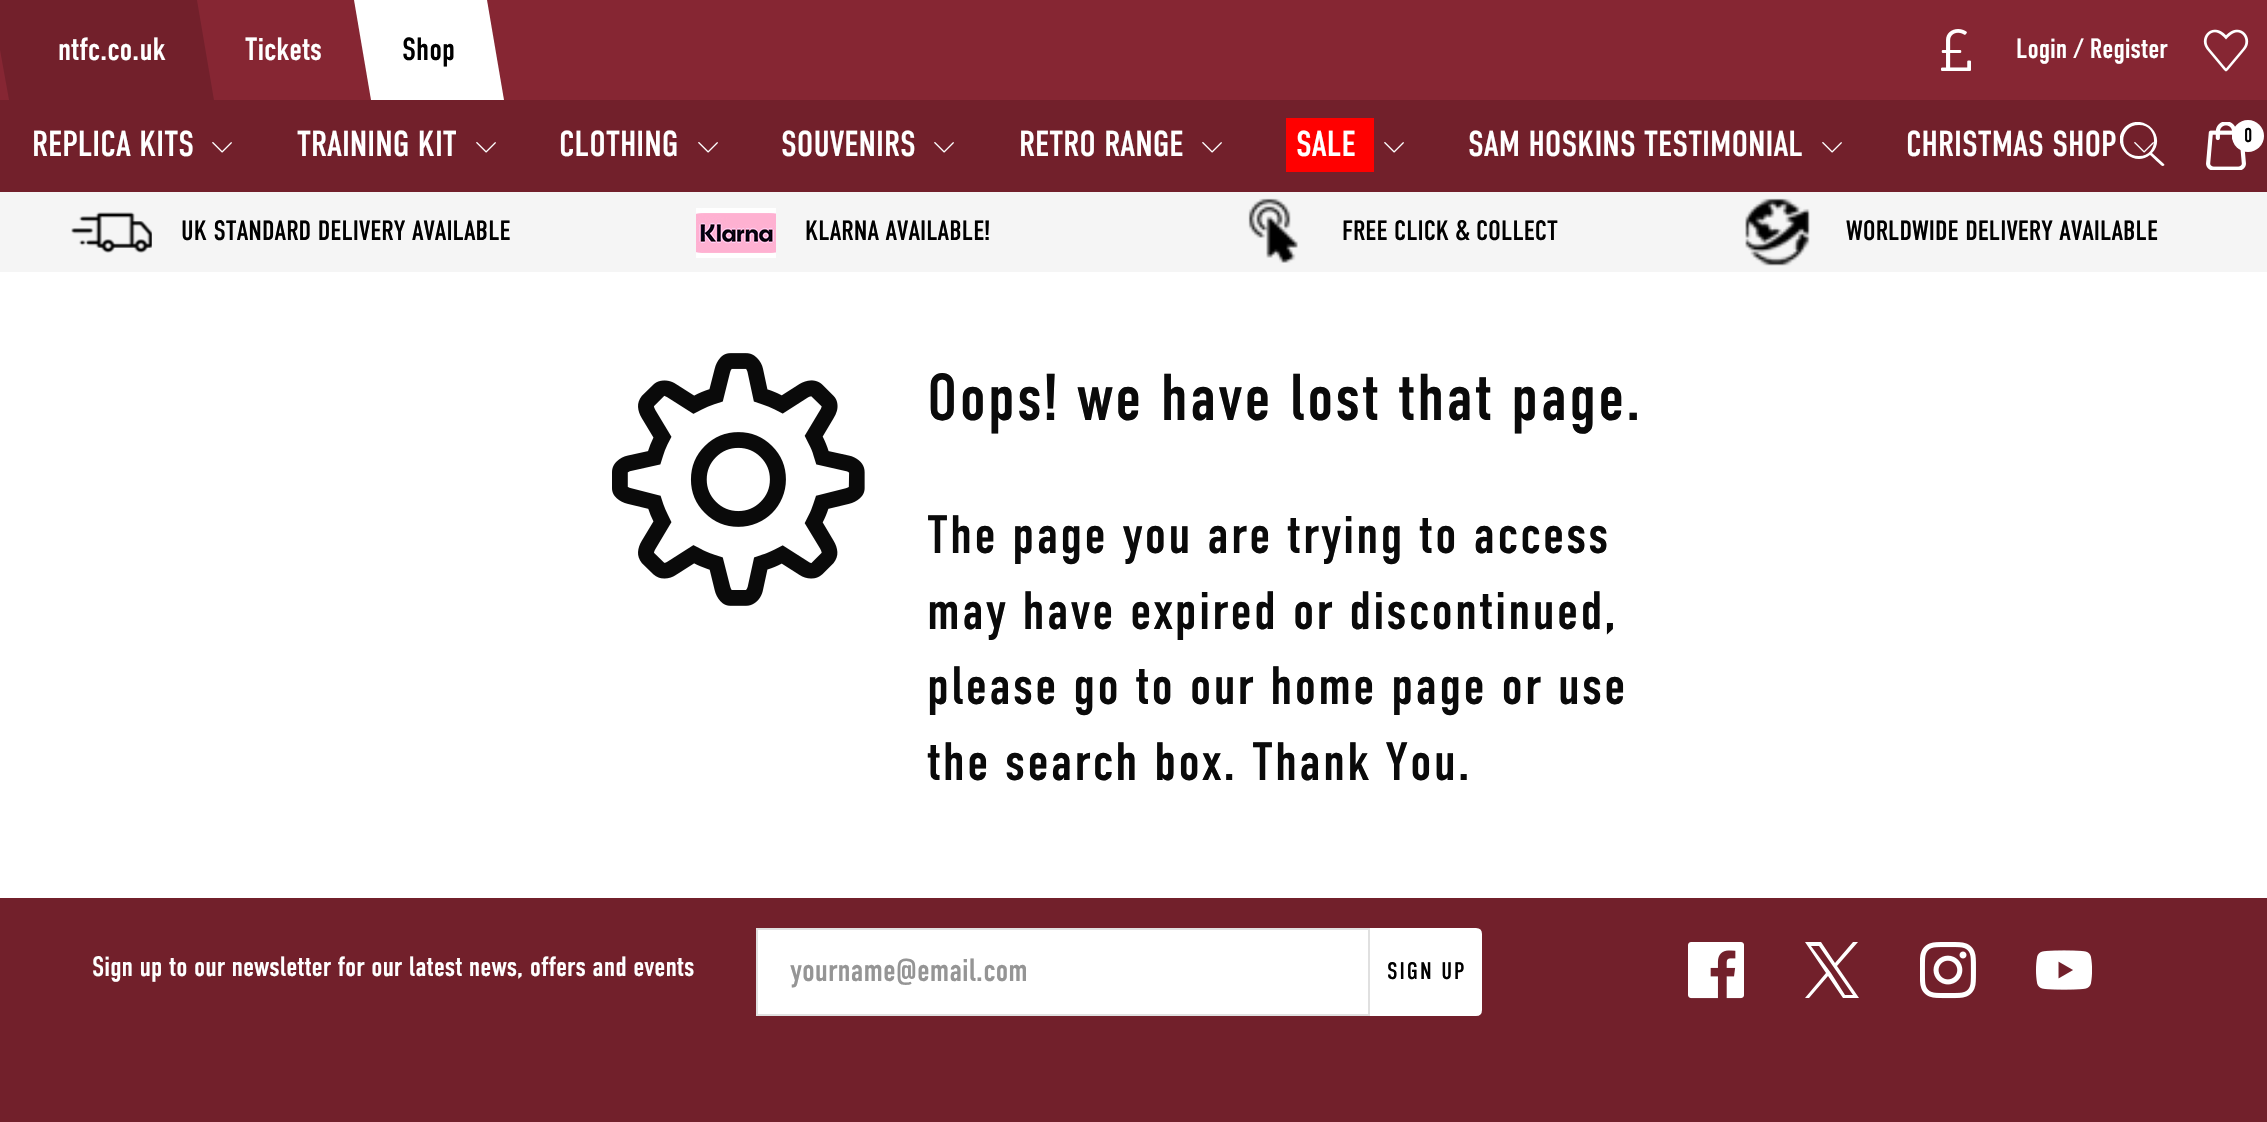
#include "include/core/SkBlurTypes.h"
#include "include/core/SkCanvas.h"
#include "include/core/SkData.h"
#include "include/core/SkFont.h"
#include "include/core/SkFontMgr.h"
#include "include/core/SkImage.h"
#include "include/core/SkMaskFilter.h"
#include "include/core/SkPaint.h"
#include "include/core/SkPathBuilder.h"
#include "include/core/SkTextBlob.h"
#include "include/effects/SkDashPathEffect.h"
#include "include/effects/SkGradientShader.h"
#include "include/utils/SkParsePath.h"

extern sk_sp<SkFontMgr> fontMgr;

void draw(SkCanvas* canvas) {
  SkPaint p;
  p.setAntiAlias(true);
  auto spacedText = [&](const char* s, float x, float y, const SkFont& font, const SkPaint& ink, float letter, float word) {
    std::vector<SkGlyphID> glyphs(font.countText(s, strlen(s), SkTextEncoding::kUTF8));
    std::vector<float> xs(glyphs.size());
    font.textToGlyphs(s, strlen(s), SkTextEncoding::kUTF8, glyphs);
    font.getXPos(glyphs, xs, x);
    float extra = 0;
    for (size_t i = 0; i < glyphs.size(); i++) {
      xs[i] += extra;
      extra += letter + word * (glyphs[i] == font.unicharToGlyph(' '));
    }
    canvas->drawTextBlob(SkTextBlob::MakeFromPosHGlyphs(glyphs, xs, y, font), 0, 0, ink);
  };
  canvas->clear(SK_ColorWHITE);
  p.setColor(SkColorSetRGB(134, 38, 51));
  canvas->drawRect(SkRect::MakeLTRB(0, 0, 2267, 100), p);
  p.setColor(SkColorSetRGB(114, 32, 43));
  canvas->drawPath(SkPathBuilder().moveTo(-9, 0).lineTo(197, 0).lineTo(214, 100).lineTo(9, 100).close().detach(), p);
  p.setColor(SK_ColorWHITE);
  canvas->drawPath(SkPathBuilder().moveTo(354, 0).lineTo(487, 0).lineTo(504, 100).lineTo(371, 100).close().detach(), p);
  canvas->drawImageRect(SkImages::DeferredFromEncodedData(SkData::MakeFromFileName("images/1.png")), SkRect::MakeLTRB(1941, 29, 1971, 71), SkSamplingOptions());
  canvas->drawImageRect(SkImages::DeferredFromEncodedData(SkData::MakeFromFileName("images/2.png")), SkRect::MakeLTRB(2203, 29, 2249, 72), SkSamplingOptions());
  p.setColor(SkColorSetRGB(114, 32, 43));
  canvas->drawRect(SkRect::MakeLTRB(0, 100, 2267, 192), p);
  canvas->drawImageRect(SkImages::DeferredFromEncodedData(SkData::MakeFromFileName("images/3.png")), SkRect::MakeLTRB(212, 142, 232, 153), SkSamplingOptions());
  canvas->drawImageRect(SkImages::DeferredFromEncodedData(SkData::MakeFromFileName("images/3.png")), SkRect::MakeLTRB(476, 142, 496, 153), SkSamplingOptions());
  canvas->drawImageRect(SkImages::DeferredFromEncodedData(SkData::MakeFromFileName("images/3.png")), SkRect::MakeLTRB(698, 142, 718, 153), SkSamplingOptions());
  canvas->drawImageRect(SkImages::DeferredFromEncodedData(SkData::MakeFromFileName("images/3.png")), SkRect::MakeLTRB(934, 142, 954, 153), SkSamplingOptions());
  canvas->drawImageRect(SkImages::DeferredFromEncodedData(SkData::MakeFromFileName("images/3.png")), SkRect::MakeLTRB(1202, 142, 1222, 153), SkSamplingOptions());
  p.setColor(SkColorSetRGB(255, 0, 0));
  canvas->drawRect(SkRect::MakeLTRB(1286, 118, 1374, 172), p);
  canvas->drawImageRect(SkImages::DeferredFromEncodedData(SkData::MakeFromFileName("images/3.png")), SkRect::MakeLTRB(1384, 142, 1404, 153), SkSamplingOptions());
  canvas->drawImageRect(SkImages::DeferredFromEncodedData(SkData::MakeFromFileName("images/3.png")), SkRect::MakeLTRB(1822, 142, 1842, 153), SkSamplingOptions());
  canvas->save();
  canvas->clipRect(SkRect::MakeLTRB(2120, 122, 2168, 170));
  p.setColor(SK_ColorWHITE);
  canvas->drawPath(SkPathBuilder(SkPathFillType::kEvenOdd).moveTo(2139, 156).cubicTo(2118, 156, 2118, 125, 2139, 125).cubicTo(2159, 125, 2159, 156, 2139, 156).close().moveTo(2164, 164).lineTo(2152, 153).cubicTo(2168, 136, 2143, 111, 2125, 127).cubicTo(2109, 144, 2133, 169, 2150, 155).cubicTo(2152, 156, 2162, 167, 2163, 166).cubicTo(2164, 166, 2165, 165, 2164, 164).close().detach(), p);
  canvas->restore();
  canvas->drawImageRect(SkImages::DeferredFromEncodedData(SkData::MakeFromFileName("images/4.png")), SkRect::MakeLTRB(2134, 142, 2154, 153), SkSamplingOptions());
  canvas->drawImageRect(SkImages::DeferredFromEncodedData(SkData::MakeFromFileName("images/5.png")), SkRect::MakeLTRB(2206, 122, 2246, 170), SkSamplingOptions());
  canvas->drawCircle(2248, 136, 16, p);
  p.setColor(SkColorSetRGB(245, 245, 245));
  canvas->drawRect(SkRect::MakeLTRB(0, 192, 2267, 272), p);
  canvas->drawImageRect(SkImages::DeferredFromEncodedData(SkData::MakeFromFileName("images/6.png")), SkRect::MakeLTRB(71, 212, 152, 253), SkSamplingOptions());
  canvas->drawImageRect(SkImages::DeferredFromEncodedData(SkData::MakeFromFileName("images/7.png")), SkRect::MakeLTRB(696, 208, 776, 258), SkSamplingOptions());
  canvas->drawImageRect(SkImages::DeferredFromEncodedData(SkData::MakeFromFileName("images/8.png")), SkRect::MakeLTRB(1248, 198, 1298, 263), SkSamplingOptions());
  canvas->drawImageRect(SkImages::DeferredFromEncodedData(SkData::MakeFromFileName("images/9.png")), SkRect::MakeLTRB(1745, 198, 1810, 266), SkSamplingOptions());
  canvas->drawImageRect(SkImages::DeferredFromEncodedData(SkData::MakeFromFileName("images/10.png")), SkRect::MakeLTRB(612, 353, 865, 606), SkSamplingOptions());
  p.setColor(SkColorSetRGB(114, 32, 43));
  canvas->drawRect(SkRect::MakeLTRB(0, 898, 2267, 1122), p);
  p.setColor(SK_ColorWHITE);
  canvas->drawRect(SkRect::MakeLTRB(757, 929, 1369, 1015), p);
  p.setStyle(SkPaint::kStroke_Style);
  p.setStrokeWidth(2);
  p.setColor(SkColorSetRGB(224, 224, 224));
  canvas->drawRect(SkRect::MakeLTRB(757, 929, 1369, 1015), p);
  p.setStyle(SkPaint::kFill_Style);
  p.setColor(SK_ColorWHITE);
  canvas->drawPath(SkPathBuilder().moveTo(1371, 929).lineTo(1476, 929).cubicTo(1479, 929, 1481, 931, 1481, 934).lineTo(1481, 1010).cubicTo(1481, 1013, 1479, 1015, 1476, 1015).lineTo(1371, 1015).close().detach(), p);
  p.setStyle(SkPaint::kStroke_Style);
  canvas->drawPath(SkPathBuilder().moveTo(1371, 929).lineTo(1476, 929).cubicTo(1479, 929, 1481, 931, 1481, 934).lineTo(1481, 1010).cubicTo(1481, 1013, 1479, 1015, 1476, 1015).lineTo(1371, 1015).close().detach(), p);
  canvas->drawImageRect(SkImages::DeferredFromEncodedData(SkData::MakeFromFileName("images/11.png")), SkRect::MakeLTRB(1688, 942, 1744, 999), SkSamplingOptions());
  p.setStyle(SkPaint::kFill_Style);
  canvas->drawPath(SkPathBuilder().moveTo(1837, 966).lineTo(1858, 942).lineTo(1853, 942).lineTo(1835, 963).lineTo(1821, 942).lineTo(1805, 942).lineTo(1826, 973).lineTo(1805, 998).lineTo(1809, 998).lineTo(1828, 976).lineTo(1843, 998).lineTo(1859, 998).close().moveTo(1831, 973).lineTo(1811, 946).lineTo(1819, 946).lineTo(1853, 995).lineTo(1845, 995).close().detach(), p);
  canvas->drawImageRect(SkImages::DeferredFromEncodedData(SkData::MakeFromFileName("images/12.png")), SkRect::MakeLTRB(1920, 942, 1976, 999), SkSamplingOptions());
  canvas->drawImageRect(SkImages::DeferredFromEncodedData(SkData::MakeFromFileName("images/13.png")), SkRect::MakeLTRB(2036, 950, 2092, 990), SkSamplingOptions());
  SkFont font1(fontMgr->matchFamilyStyle("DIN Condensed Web", SkFontStyle::Normal()), 32);
  font1.setSubpixel(true);
  canvas->drawString("ntfc.co.uk", 58, 60, font1, p);
  canvas->drawString("Tickets", 245, 60, font1, p);
  p.setColor(SK_ColorBLACK);
  canvas->drawString("Shop", 402, 60, font1, p);
  SkFont font2(fontMgr->matchFamilyStyle("DIN Condensed Web", SkFontStyle::Normal()), 28);
  font2.setSubpixel(true);
  p.setColor(SK_ColorWHITE);
  canvas->drawString("Login / Register", 2016, 58, font2, p);
  SkFont font3(fontMgr->matchFamilyStyle("DIN Condensed Web", SkFontStyle::Normal()), 36);
  font3.setSubpixel(true);
  canvas->drawString("REPLICA KITS", 32, 156, font3, p);
  canvas->drawString("TRAINING KIT", 297, 156, font3, p);
  canvas->drawString("CLOTHING", 559, 156, font3, p);
  canvas->drawString("SOUVENIRS", 781, 156, font3, p);
  canvas->drawString("RETRO RANGE", 1019, 156, font3, p);
  canvas->drawString("SALE", 1296, 156, font3, p);
  canvas->drawString("SAM HOSKINS TESTIMONIAL", 1468, 156, font3, p);
  canvas->drawString("CHRISTMAS SHOP", 1906, 156, font3, p);
  SkFont font4(fontMgr->matchFamilyStyle("DIN Condensed Web", SkFontStyle::Normal()), 20);
  font4.setSubpixel(true);
  p.setColor(SK_ColorBLACK);
  canvas->drawString("0", 2244, 142, font4, p);
  canvas->drawString("UK STANDARD DELIVERY AVAILABLE", 181, 240, font2, p);
  canvas->drawString("KLARNA AVAILABLE!", 805, 240, font2, p);
  canvas->drawString("FREE CLICK & COLLECT", 1342, 240, font2, p);
  canvas->drawString("WORLDWIDE DELIVERY AVAILABLE", 1846, 240, font2, p);
  SkFont font5(fontMgr->matchFamilyStyle("DIN Condensed Web", SkFontStyle::Normal()), 66.1f);
  font5.setSubpixel(true);
  p.setColor(SkColorSetRGB(10, 10, 10));
  spacedText("Oops! we have lost that page.", 927, 420, font5, p, 2, 0);
  SkFont font6(fontMgr->matchFamilyStyle("DIN Condensed Web", SkFontStyle::Normal()), 54.1f);
  font6.setSubpixel(true);
  spacedText("The page you are trying to access", 927, 553, font6, p, 2, 0);
  spacedText("may have expired or discontinued,", 927, 629, font6, p, 2, 0);
  spacedText("please go to our home page or use", 927, 704, font6, p, 2, 0);
  spacedText("the search box. Thank You.", 927, 780, font6, p, 2, 0);
  p.setColor(SK_ColorWHITE);
  canvas->drawString("Sign up to our newsletter for our latest news, offers and events", 92, 976, font2, p);
  p.setColor(SkColorSetRGB(149, 149, 149));
  canvas->drawString("yourname@email.com", 790, 981, font1, p);
  SkFont font7(fontMgr->matchFamilyStyle("DIN Condensed Web", SkFontStyle::Normal()), 24);
  font7.setSubpixel(true);
  p.setColor(SK_ColorBLACK);
  spacedText("SIGN UP", 1387, 979, font7, p, 2, 0);
}
